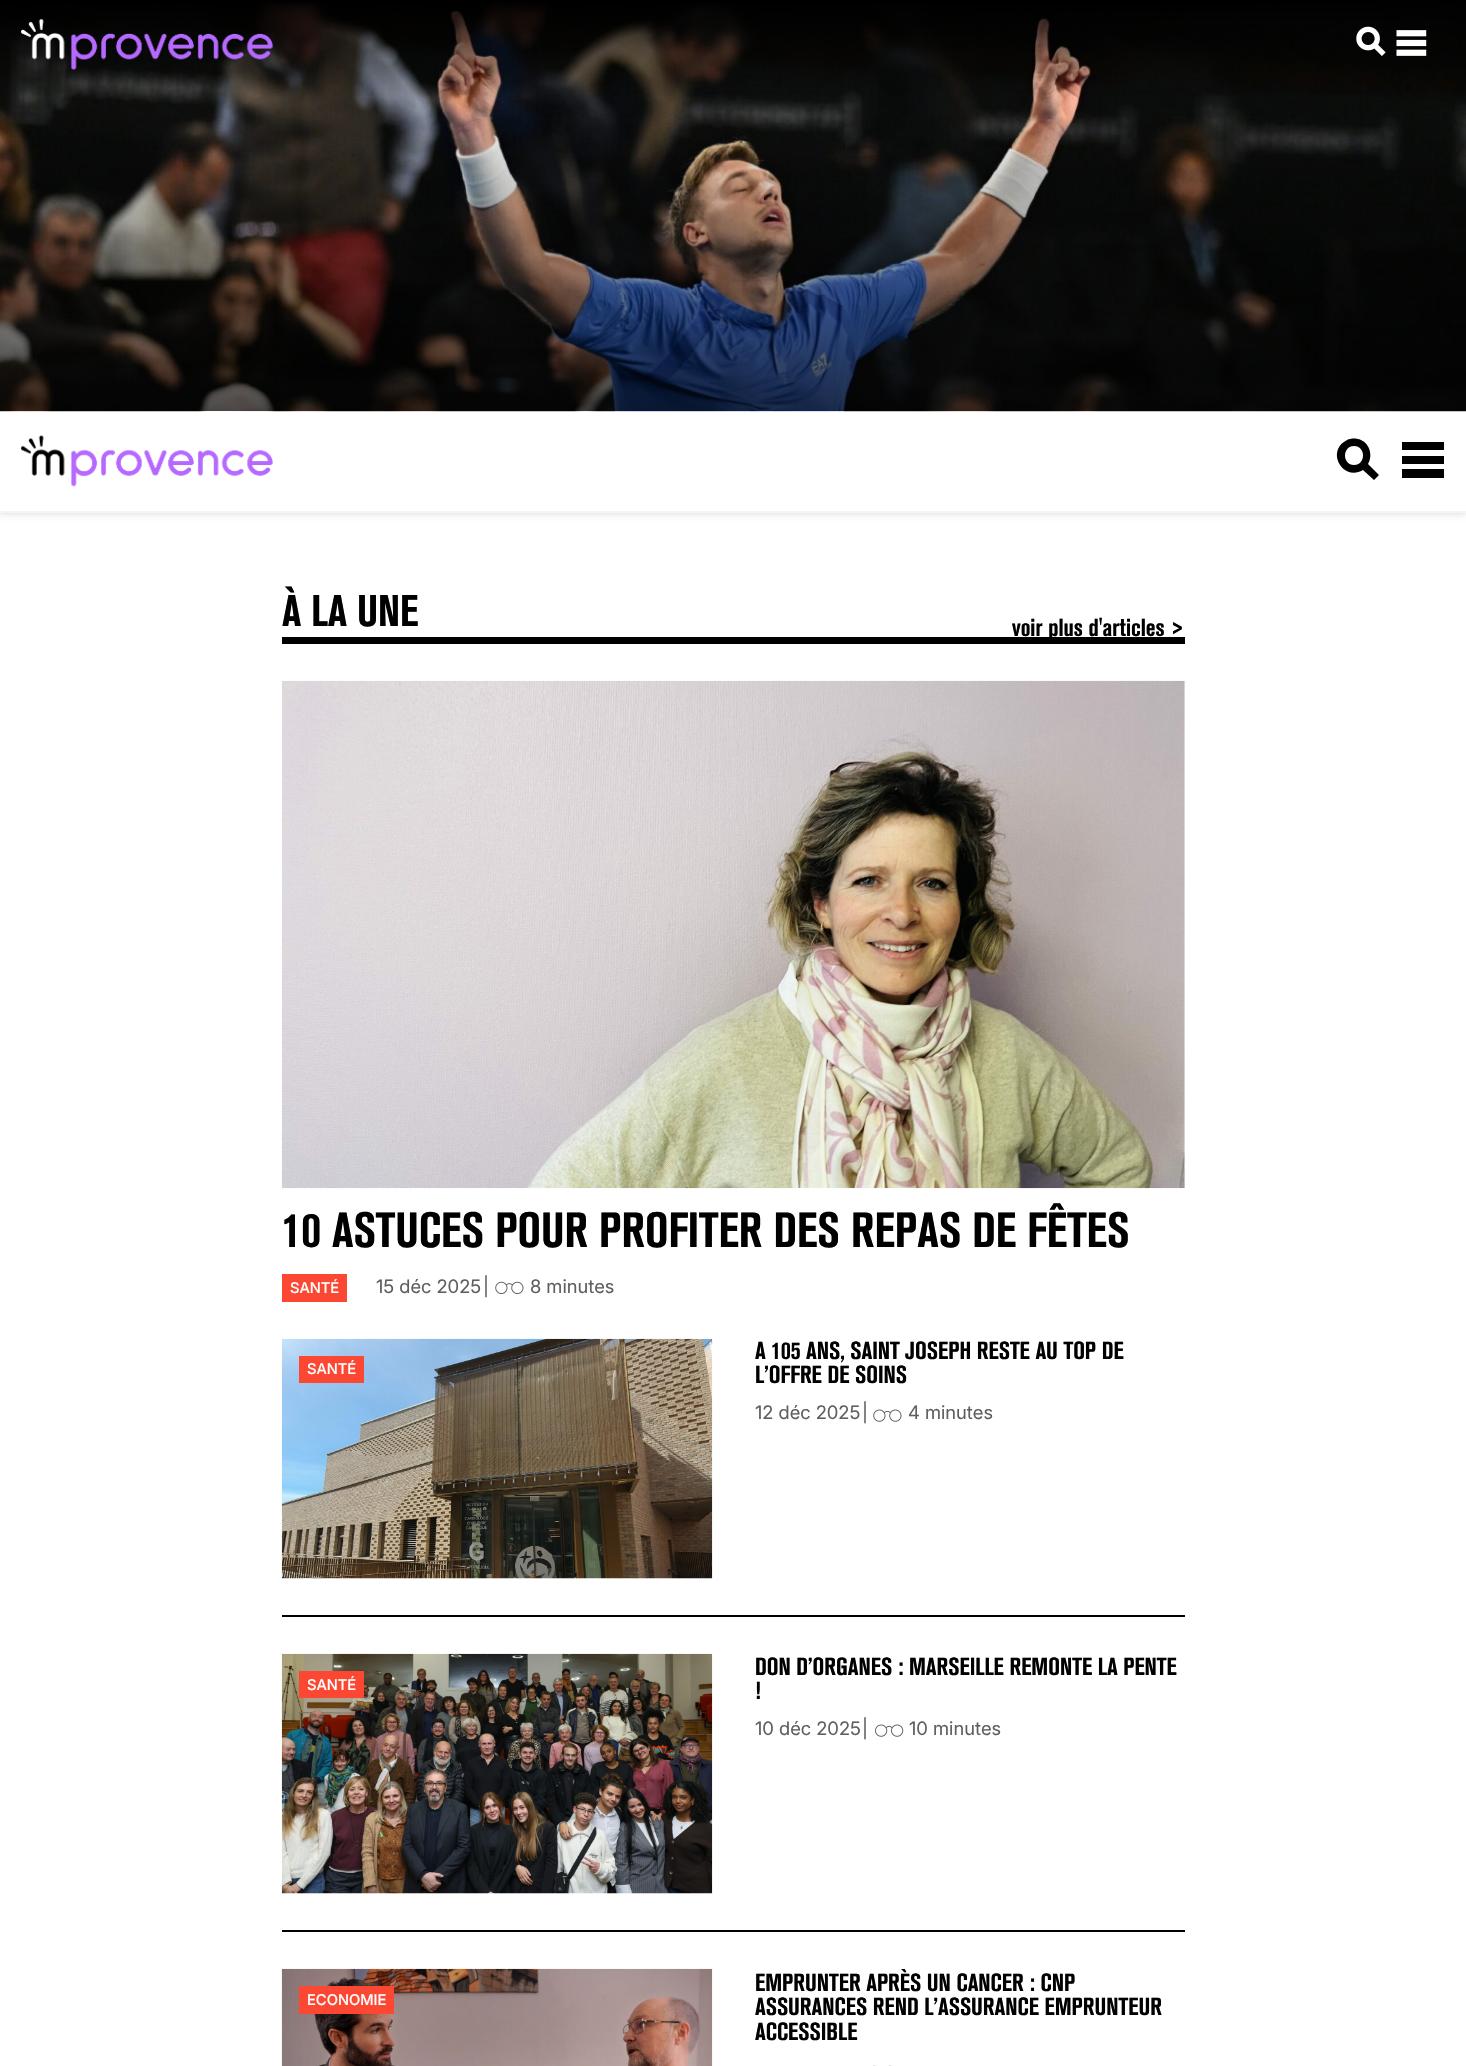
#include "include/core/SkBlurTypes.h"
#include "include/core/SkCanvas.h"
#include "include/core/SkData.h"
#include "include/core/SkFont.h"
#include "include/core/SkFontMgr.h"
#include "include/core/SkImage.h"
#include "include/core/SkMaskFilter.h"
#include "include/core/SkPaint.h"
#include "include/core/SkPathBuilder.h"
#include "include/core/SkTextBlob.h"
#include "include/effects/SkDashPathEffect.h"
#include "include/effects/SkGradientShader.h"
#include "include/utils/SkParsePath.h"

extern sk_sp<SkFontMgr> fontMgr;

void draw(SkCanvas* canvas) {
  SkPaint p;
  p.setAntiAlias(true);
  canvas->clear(SK_ColorWHITE);
  p.setColor(SkColorSetARGB(41, 0, 0, 0));
  p.setMaskFilter(SkMaskFilter::MakeBlur(kNormal_SkBlurStyle, 3.5f));
  canvas->drawRect(SkRect::MakeLTRB(0, 411, 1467, 513), p);
  p.setMaskFilter(nullptr);
  p.setColor(SK_ColorWHITE);
  canvas->drawRect(SkRect::MakeLTRB(0, 411, 1466, 511), p);
  canvas->drawImageRect(SkImages::DeferredFromEncodedData(SkData::MakeFromFileName("images/1.png")), SkRect::MakeLTRB(0, 0, 1466, 412), SkSamplingOptions());
  canvas->drawImageRect(SkImages::DeferredFromEncodedData(SkData::MakeFromFileName("images/2.png")), SkRect::MakeLTRB(21, 19, 273, 70), SkSamplingOptions());
  canvas->drawImageRect(SkImages::DeferredFromEncodedData(SkData::MakeFromFileName("images/3.png")), SkRect::MakeLTRB(1356, 26, 1386, 56), SkSamplingOptions());
  canvas->drawImageRect(SkImages::DeferredFromEncodedData(SkData::MakeFromFileName("images/4.png")), SkRect::MakeLTRB(1396, 30, 1427, 56), SkSamplingOptions());
  p.setColor(SkColorSetRGB(245, 245, 245));
  canvas->drawRect(SkRect::MakeLTRB(0, 511, 1466, 513), p);
  canvas->drawImageRect(SkImages::DeferredFromEncodedData(SkData::MakeFromFileName("images/5.png")), SkRect::MakeLTRB(21, 435, 273, 487), SkSamplingOptions());
  p.setColor(SK_ColorBLACK);
  canvas->drawPath(SkPathBuilder().moveTo(1368, 464).cubicTo(1373, 456, 1370, 444, 1361, 440).cubicTo(1357, 438, 1351, 438, 1347, 440).cubicTo(1325, 451, 1343, 482, 1363, 470).lineTo(1374, 480).lineTo(1379, 475).close().moveTo(1354, 465).cubicTo(1342, 465, 1342, 446, 1354, 446).cubicTo(1366, 446, 1366, 465, 1354, 465).close().detach(), p);
  canvas->drawPath(SkPathBuilder().moveTo(1402, 456).lineTo(1444, 456).lineTo(1444, 464).lineTo(1402, 464).close().moveTo(1402, 442).lineTo(1444, 442).lineTo(1444, 450).lineTo(1402, 450).close().moveTo(1402, 469).lineTo(1444, 469).lineTo(1444, 478).lineTo(1402, 478).close().detach(), p);
  canvas->drawRect(SkRect::MakeLTRB(282, 637, 1185, 644), p);
  canvas->drawRect(SkRect::MakeLTRB(282, 1615, 1185, 1617), p);
  canvas->drawImageRect(SkImages::DeferredFromEncodedData(SkData::MakeFromFileName("images/6.png")), SkRect::MakeLTRB(281, 1338, 713, 1579), SkSamplingOptions());
  p.setColor(SkColorSetRGB(252, 71, 51));
  canvas->drawRect(SkRect::MakeLTRB(299, 1356, 364, 1383), p);
  canvas->drawImageRect(SkImages::DeferredFromEncodedData(SkData::MakeFromFileName("images/7.png")), SkRect::MakeLTRB(873, 1409, 902, 1422), SkSamplingOptions());
  p.setColor(SK_ColorBLACK);
  canvas->drawRect(SkRect::MakeLTRB(282, 1930, 1185, 1932), p);
  canvas->drawImageRect(SkImages::DeferredFromEncodedData(SkData::MakeFromFileName("images/8.png")), SkRect::MakeLTRB(281, 1653, 713, 1894), SkSamplingOptions());
  p.setColor(SkColorSetRGB(252, 71, 51));
  canvas->drawRect(SkRect::MakeLTRB(299, 1671, 364, 1698), p);
  canvas->drawImageRect(SkImages::DeferredFromEncodedData(SkData::MakeFromFileName("images/9.png")), SkRect::MakeLTRB(875, 1724, 904, 1737), SkSamplingOptions());
  canvas->drawImageRect(SkImages::DeferredFromEncodedData(SkData::MakeFromFileName("images/10.png")), SkRect::MakeLTRB(281, 1968, 713, 2066), SkSamplingOptions());
  canvas->drawRect(SkRect::MakeLTRB(299, 1986, 394, 2014), p);
  canvas->drawImageRect(SkImages::DeferredFromEncodedData(SkData::MakeFromFileName("images/11.png")), SkRect::MakeLTRB(873, 2065, 892, 2066), SkSamplingOptions());
  canvas->drawImageRect(SkImages::DeferredFromEncodedData(SkData::MakeFromFileName("images/12.png")), SkRect::MakeLTRB(281, 680, 1185, 1189), SkSamplingOptions());
  canvas->drawRect(SkRect::MakeLTRB(282, 1274, 347, 1302), p);
  canvas->drawImageRect(SkImages::DeferredFromEncodedData(SkData::MakeFromFileName("images/13.png")), SkRect::MakeLTRB(495, 1281, 524, 1294), SkSamplingOptions());
  SkFont font1(fontMgr->matchFamilyStyle("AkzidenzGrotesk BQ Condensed", SkFontStyle::Bold()), 44);
  font1.setSubpixel(true);
  p.setColor(SK_ColorBLACK);
  canvas->drawString("À LA UNE", 282, 626, font1, p);
  SkFont font2(fontMgr->matchFamilyStyle("AkzidenzGrotesk BQ Condensed", SkFontStyle::Bold()), 24.5f);
  font2.setSubpixel(true);
  canvas->drawString("voir plus d'articles >", 1012, 636, font2, p);
  canvas->drawString("A 105 ANS, SAINT JOSEPH RESTE AU TOP DE", 755, 1359, font2, p);
  canvas->drawString("L’OFFRE DE SOINS", 755, 1383, font2, p);
  SkFont font3(fontMgr->matchFamilyStyle("Inter", SkFontStyle(500, SkFontStyle::kNormal_Width, SkFontStyle::kUpright_Slant)), 14.75f);
  font3.setSubpixel(true);
  p.setColor(SK_ColorWHITE);
  canvas->drawString("SANTÉ", 307, 1374, font3, p);
  SkFont font4(fontMgr->matchFamilyStyle("Inter", SkFontStyle::Normal()), 18.5f);
  font4.setSubpixel(true);
  p.setColor(SkColorSetRGB(95, 95, 95));
  canvas->drawString("12 déc 2025", 755, 1419, font4, p);
  canvas->drawString("|", 862, 1419, font4, p);
  canvas->drawString("4 minutes", 908, 1419, font4, p);
  p.setColor(SK_ColorBLACK);
  canvas->drawString("DON D’ORGANES : MARSEILLE REMONTE LA PENTE", 755, 1675, font2, p);
  canvas->drawString("!", 755, 1699, font2, p);
  p.setColor(SK_ColorWHITE);
  canvas->drawString("SANTÉ", 307, 1690, font3, p);
  p.setColor(SkColorSetRGB(95, 95, 95));
  canvas->drawString("10 déc 2025", 755, 1735, font4, p);
  canvas->drawString("|", 862, 1735, font4, p);
  canvas->drawString("10 minutes", 909, 1735, font4, p);
  p.setColor(SK_ColorWHITE);
  canvas->drawString("ECONOMIE", 307, 2005, font3, p);
  p.setColor(SK_ColorBLACK);
  canvas->drawString("EMPRUNTER APRÈS UN CANCER : CNP", 755, 1991, font2, p);
  canvas->drawString("ASSURANCES REND L’ASSURANCE EMPRUNTEUR", 755, 2015, font2, p);
  canvas->drawString("ACCESSIBLE", 755, 2040, font2, p);
  SkFont font5(fontMgr->matchFamilyStyle("AkzidenzGrotesk BQ Condensed", SkFontStyle::Bold()), 49);
  font5.setSubpixel(true);
  canvas->drawString("10 ASTUCES POUR PROFITER DES REPAS DE FÊTES", 282, 1247, font5, p);
  p.setColor(SK_ColorWHITE);
  canvas->drawString("SANTÉ", 290, 1293, font3, p);
  p.setColor(SkColorSetRGB(95, 95, 95));
  canvas->drawString("15 déc 2025", 376, 1293, font4, p);
  canvas->drawString("|", 483, 1293, font4, p);
  canvas->drawString("8 minutes", 530, 1293, font4, p);
}
